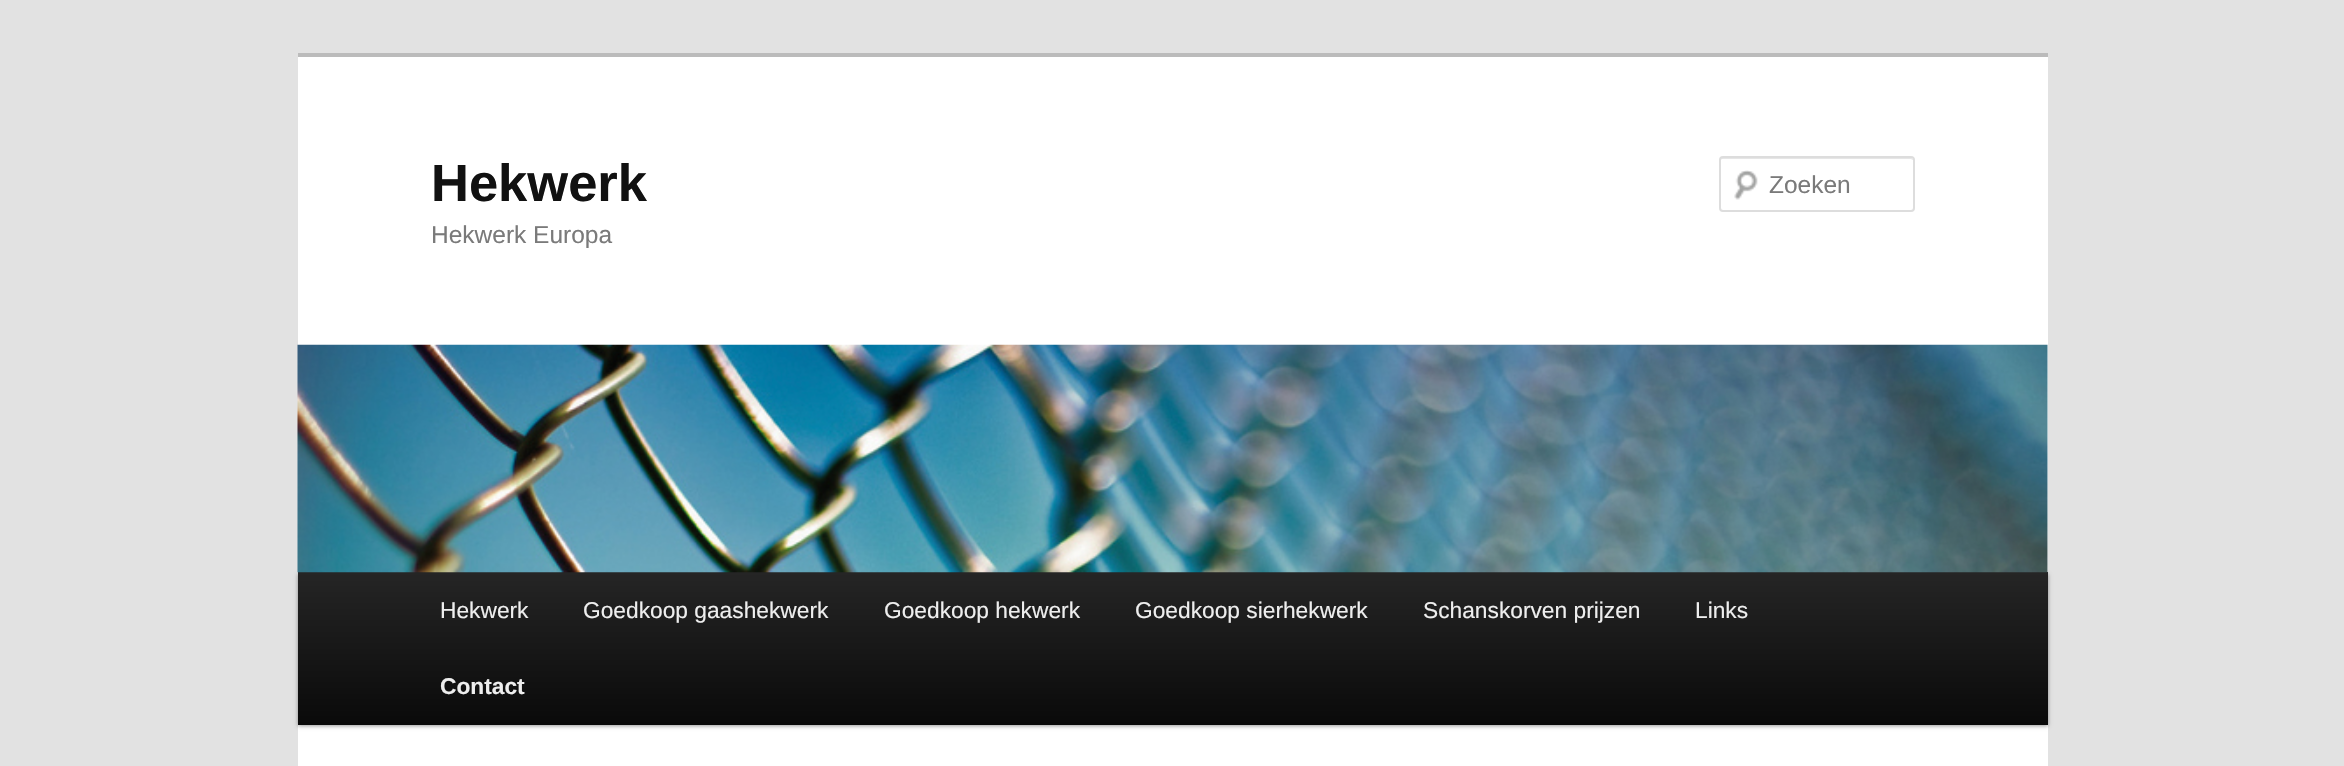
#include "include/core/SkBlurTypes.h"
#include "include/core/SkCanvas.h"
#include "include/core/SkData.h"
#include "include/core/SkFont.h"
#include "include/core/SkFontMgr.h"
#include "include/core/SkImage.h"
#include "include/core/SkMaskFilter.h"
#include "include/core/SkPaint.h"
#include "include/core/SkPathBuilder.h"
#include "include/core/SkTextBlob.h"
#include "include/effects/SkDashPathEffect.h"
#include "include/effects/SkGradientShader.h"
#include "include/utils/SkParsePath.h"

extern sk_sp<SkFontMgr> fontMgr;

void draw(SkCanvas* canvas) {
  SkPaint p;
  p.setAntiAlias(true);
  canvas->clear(SkColorSetRGB(226, 226, 226));
  p.setColor(SK_ColorWHITE);
  canvas->drawRect(SkRect::MakeLTRB(298, 57, 2048, 766), p);
  p.setColor(SkColorSetRGB(187, 187, 187));
  canvas->drawRect(SkRect::MakeLTRB(298, 53, 2048, 57), p);
  canvas->drawImageRect(SkImages::DeferredFromEncodedData(SkData::MakeFromFileName("images/1.png")), SkRect::MakeLTRB(1734, 170, 1758, 200), SkSamplingOptions());
  p.setColor(SkColorSetRGB(230, 230, 230));
  canvas->drawPath(SkPathBuilder().moveTo(1722, 159).lineTo(1911, 159).lineTo(1913, 160).lineTo(1913, 161).lineTo(1913, 160).cubicTo(1913, 159, 1912, 158, 1911, 158).lineTo(1722, 158).cubicTo(1721, 158, 1720, 159, 1720, 160).lineTo(1720, 161).cubicTo(1720, 160, 1721, 159, 1722, 159).close().detach(), p);
  p.setStyle(SkPaint::kStroke_Style);
  p.setStrokeWidth(2);
  p.setColor(SkColorSetRGB(221, 221, 221));
  canvas->drawRoundRect(SkRect::MakeLTRB(1720, 157, 1914, 211), 3, 3, p);
  p.setStyle(SkPaint::kFill_Style);
  p.setColor(SkColorSetARGB(102, 0, 0, 0));
  p.setMaskFilter(SkMaskFilter::MakeBlur(kNormal_SkBlurStyle, 2));
  canvas->drawRect(SkRect::MakeLTRB(298, 574, 2048, 726), p);
  p.setMaskFilter(nullptr);
  {
    const SkColor colors[] = {SkColorSetRGB(37, 37, 37), SkColorSetRGB(10, 10, 10)};
    const float stops[] = {0, 1};
    const SkPoint ends[] = {{1173, 572}, {1173, 725}};
    p.setShader(SkGradientShader::MakeLinear(ends, colors, stops, 2, SkTileMode::kClamp));
    p.setAlpha(255);
  }
  canvas->drawRect(SkRect::MakeLTRB(298, 572, 2048, 725), p);
  canvas->drawImageRect(SkImages::DeferredFromEncodedData(SkData::MakeFromFileName("images/2.png")), SkRect::MakeLTRB(297, 344, 2048, 573), SkSamplingOptions());
  SkFont font1(fontMgr->matchFamilyStyle("Liberation Sans", SkFontStyle::Bold()), 52.5f);
  font1.setSubpixel(true);
  p.setShader(nullptr);
  p.setColor(SkColorSetRGB(17, 17, 17));
  canvas->drawString("Hekwerk", 431, 201, font1, p);
  SkFont font2(fontMgr->matchFamilyStyle("Liberation Sans", SkFontStyle::Normal()), 24.5f);
  font2.setSubpixel(true);
  p.setColor(SkColorSetRGB(122, 122, 122));
  canvas->drawString("Hekwerk Europa", 431, 243, font2, p);
  canvas->drawString("Zoeken", 1769, 193, font2, p);
  SkFont font3(fontMgr->matchFamilyStyle("Liberation Sans", SkFontStyle::Normal()), 22.75f);
  font3.setSubpixel(true);
  p.setColor(SkColorSetRGB(238, 238, 238));
  canvas->drawString("Hekwerk", 440, 618, font3, p);
  canvas->drawString("Goedkoop gaashekwerk", 583, 618, font3, p);
  canvas->drawString("Goedkoop hekwerk", 884, 618, font3, p);
  canvas->drawString("Goedkoop sierhekwerk", 1135, 618, font3, p);
  canvas->drawString("Schanskorven prijzen", 1423, 618, font3, p);
  canvas->drawString("Links", 1695, 618, font3, p);
  SkFont font4(fontMgr->matchFamilyStyle("Liberation Sans", SkFontStyle::Bold()), 22.75f);
  font4.setSubpixel(true);
  canvas->drawString("Contact", 440, 694, font4, p);
}
